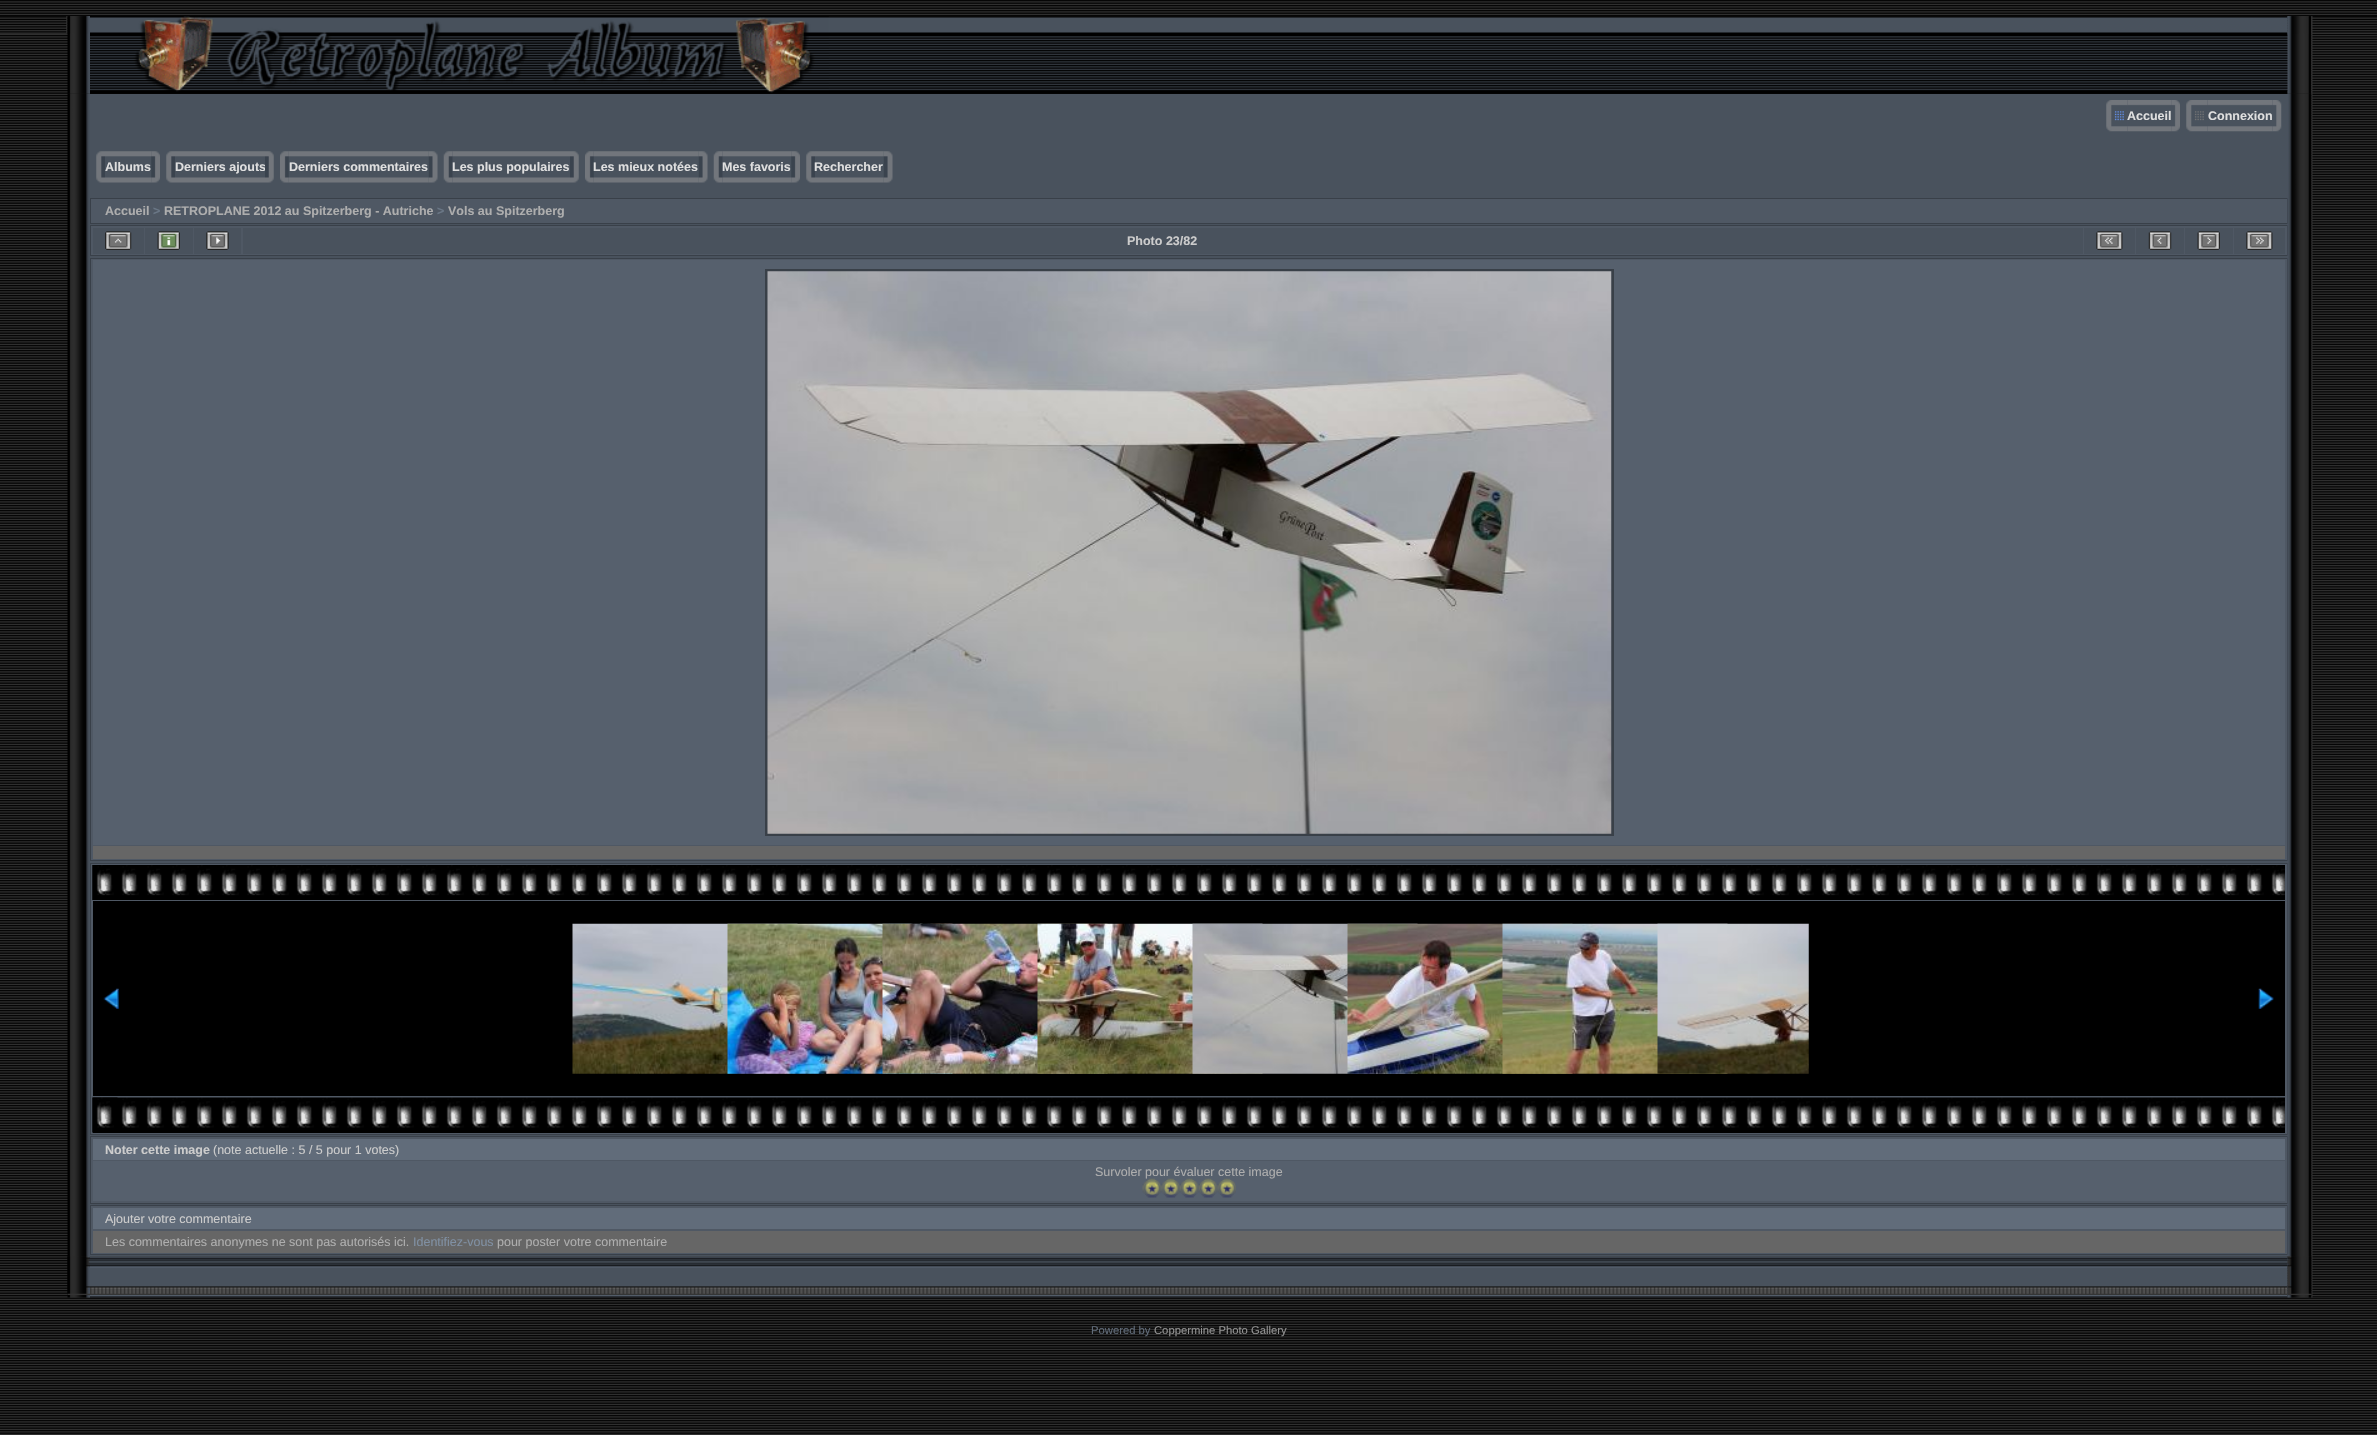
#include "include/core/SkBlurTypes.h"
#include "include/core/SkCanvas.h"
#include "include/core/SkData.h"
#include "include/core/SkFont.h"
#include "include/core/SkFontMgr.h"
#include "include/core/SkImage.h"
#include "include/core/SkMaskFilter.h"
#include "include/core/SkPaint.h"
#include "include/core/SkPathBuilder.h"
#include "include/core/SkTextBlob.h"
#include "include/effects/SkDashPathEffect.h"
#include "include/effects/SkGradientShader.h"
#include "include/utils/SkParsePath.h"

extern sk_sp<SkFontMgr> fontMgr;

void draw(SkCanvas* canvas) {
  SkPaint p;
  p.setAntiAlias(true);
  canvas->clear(SK_ColorWHITE);
  canvas->drawImageRect(SkImages::DeferredFromEncodedData(SkData::MakeFromFileName("images/1.png")), SkRect::MakeLTRB(0, 0, 2377, 1435), SkSamplingOptions());
  canvas->drawImageRect(SkImages::DeferredFromEncodedData(SkData::MakeFromFileName("images/3.png")), SkRect::MakeLTRB(67, 16, 90, 94), SkSamplingOptions());
  canvas->drawImageRect(SkImages::DeferredFromEncodedData(SkData::MakeFromFileName("images/2.png")), SkRect::MakeLTRB(0, 16, 68, 34), SkSamplingOptions());
  canvas->drawImageRect(SkImages::DeferredFromEncodedData(SkData::MakeFromFileName("images/4.png")), SkRect::MakeLTRB(67, 16, 90, 34), SkSamplingOptions());
  canvas->drawImageRect(SkImages::DeferredFromEncodedData(SkData::MakeFromFileName("images/5.png")), SkRect::MakeLTRB(90, 16, 2288, 94), SkSamplingOptions());
  canvas->drawImageRect(SkImages::DeferredFromEncodedData(SkData::MakeFromFileName("images/6.png")), SkRect::MakeLTRB(90, 16, 829, 93), SkSamplingOptions());
  canvas->drawImageRect(SkImages::DeferredFromEncodedData(SkData::MakeFromFileName("images/7.png")), SkRect::MakeLTRB(2287, 16, 2312, 94), SkSamplingOptions());
  canvas->drawImageRect(SkImages::DeferredFromEncodedData(SkData::MakeFromFileName("images/9.png")), SkRect::MakeLTRB(2311, 16, 2377, 1298), SkSamplingOptions());
  canvas->drawImageRect(SkImages::DeferredFromEncodedData(SkData::MakeFromFileName("images/8.png")), SkRect::MakeLTRB(2287, 16, 2312, 34), SkSamplingOptions());
  canvas->drawImageRect(SkImages::DeferredFromEncodedData(SkData::MakeFromFileName("images/10.png")), SkRect::MakeLTRB(2311, 16, 2377, 34), SkSamplingOptions());
  canvas->drawImageRect(SkImages::DeferredFromEncodedData(SkData::MakeFromFileName("images/11.png")), SkRect::MakeLTRB(67, 93, 90, 1257), SkSamplingOptions());
  p.setColor(SkColorSetRGB(73, 82, 93));
  canvas->drawRect(SkRect::MakeLTRB(90, 94, 2288, 1256), p);
  canvas->drawImageRect(SkImages::DeferredFromEncodedData(SkData::MakeFromFileName("images/13.png")), SkRect::MakeLTRB(2127, 100, 2172, 132), SkSamplingOptions());
  canvas->drawImageRect(SkImages::DeferredFromEncodedData(SkData::MakeFromFileName("images/12.png")), SkRect::MakeLTRB(2106, 100, 2128, 132), SkSamplingOptions());
  canvas->drawImageRect(SkImages::DeferredFromEncodedData(SkData::MakeFromFileName("images/14.png")), SkRect::MakeLTRB(2171, 100, 2180, 132), SkSamplingOptions());
  canvas->drawImageRect(SkImages::DeferredFromEncodedData(SkData::MakeFromFileName("images/16.png")), SkRect::MakeLTRB(2207, 100, 2273, 132), SkSamplingOptions());
  canvas->drawImageRect(SkImages::DeferredFromEncodedData(SkData::MakeFromFileName("images/15.png")), SkRect::MakeLTRB(2186, 100, 2208, 132), SkSamplingOptions());
  canvas->drawImageRect(SkImages::DeferredFromEncodedData(SkData::MakeFromFileName("images/17.png")), SkRect::MakeLTRB(2272, 100, 2282, 132), SkSamplingOptions());
  canvas->drawImageRect(SkImages::DeferredFromEncodedData(SkData::MakeFromFileName("images/18.png")), SkRect::MakeLTRB(96, 151, 105, 183), SkSamplingOptions());
  canvas->drawImageRect(SkImages::DeferredFromEncodedData(SkData::MakeFromFileName("images/19.png")), SkRect::MakeLTRB(105, 151, 152, 183), SkSamplingOptions());
  canvas->drawImageRect(SkImages::DeferredFromEncodedData(SkData::MakeFromFileName("images/20.png")), SkRect::MakeLTRB(151, 151, 160, 183), SkSamplingOptions());
  canvas->drawImageRect(SkImages::DeferredFromEncodedData(SkData::MakeFromFileName("images/18.png")), SkRect::MakeLTRB(166, 151, 175, 183), SkSamplingOptions());
  canvas->drawImageRect(SkImages::DeferredFromEncodedData(SkData::MakeFromFileName("images/21.png")), SkRect::MakeLTRB(175, 151, 265, 183), SkSamplingOptions());
  canvas->drawImageRect(SkImages::DeferredFromEncodedData(SkData::MakeFromFileName("images/24.png")), SkRect::MakeLTRB(288, 151, 429, 183), SkSamplingOptions());
  canvas->drawImageRect(SkImages::DeferredFromEncodedData(SkData::MakeFromFileName("images/23.png")), SkRect::MakeLTRB(280, 151, 289, 183), SkSamplingOptions());
  canvas->drawImageRect(SkImages::DeferredFromEncodedData(SkData::MakeFromFileName("images/25.png")), SkRect::MakeLTRB(428, 151, 438, 183), SkSamplingOptions());
  canvas->drawImageRect(SkImages::DeferredFromEncodedData(SkData::MakeFromFileName("images/27.png")), SkRect::MakeLTRB(452, 151, 570, 183), SkSamplingOptions());
  canvas->drawImageRect(SkImages::DeferredFromEncodedData(SkData::MakeFromFileName("images/26.png")), SkRect::MakeLTRB(443, 151, 453, 183), SkSamplingOptions());
  canvas->drawImageRect(SkImages::DeferredFromEncodedData(SkData::MakeFromFileName("images/22.png")), SkRect::MakeLTRB(570, 151, 579, 183), SkSamplingOptions());
  canvas->drawImageRect(SkImages::DeferredFromEncodedData(SkData::MakeFromFileName("images/28.png")), SkRect::MakeLTRB(593, 151, 699, 183), SkSamplingOptions());
  canvas->drawImageRect(SkImages::DeferredFromEncodedData(SkData::MakeFromFileName("images/23.png")), SkRect::MakeLTRB(585, 151, 594, 183), SkSamplingOptions());
  canvas->drawImageRect(SkImages::DeferredFromEncodedData(SkData::MakeFromFileName("images/29.png")), SkRect::MakeLTRB(698, 151, 708, 183), SkSamplingOptions());
  canvas->drawImageRect(SkImages::DeferredFromEncodedData(SkData::MakeFromFileName("images/31.png")), SkRect::MakeLTRB(722, 151, 792, 183), SkSamplingOptions());
  canvas->drawImageRect(SkImages::DeferredFromEncodedData(SkData::MakeFromFileName("images/30.png")), SkRect::MakeLTRB(713, 151, 723, 183), SkSamplingOptions());
  canvas->drawImageRect(SkImages::DeferredFromEncodedData(SkData::MakeFromFileName("images/20.png")), SkRect::MakeLTRB(791, 151, 800, 183), SkSamplingOptions());
  canvas->drawImageRect(SkImages::DeferredFromEncodedData(SkData::MakeFromFileName("images/18.png")), SkRect::MakeLTRB(806, 151, 815, 183), SkSamplingOptions());
  canvas->drawImageRect(SkImages::DeferredFromEncodedData(SkData::MakeFromFileName("images/32.png")), SkRect::MakeLTRB(815, 151, 884, 183), SkSamplingOptions());
  p.setColor(SkColorSetRGB(79, 88, 100));
  canvas->drawRect(SkRect::MakeLTRB(90.5f, 198.5f, 2287.5f, 223.5f), p);
  p.setStyle(SkPaint::kStroke_Style);
  p.setStrokeWidth(1);
  p.setColor(SkColorSetRGB(57, 64, 73));
  canvas->drawRect(SkRect::MakeLTRB(90.5f, 198.5f, 2287.5f, 223.5f), p);
  p.setStyle(SkPaint::kFill_Style);
  p.setColor(SkColorSetRGB(79, 88, 100));
  canvas->drawRect(SkRect::MakeLTRB(90.5f, 225.5f, 2287.5f, 255.5f), p);
  p.setStyle(SkPaint::kStroke_Style);
  p.setColor(SkColorSetRGB(57, 64, 73));
  canvas->drawRect(SkRect::MakeLTRB(90.5f, 225.5f, 2287.5f, 255.5f), p);
  p.setStyle(SkPaint::kFill_Style);
  p.setColor(SkColorSetRGB(73, 82, 93));
  canvas->drawRect(SkRect::MakeLTRB(93, 228, 144, 254), p);
  canvas->drawImageRect(SkImages::DeferredFromEncodedData(SkData::MakeFromFileName("images/34.png")), SkRect::MakeLTRB(105, 231, 132, 250), SkSamplingOptions());
  canvas->drawRect(SkRect::MakeLTRB(145, 228, 193, 254), p);
  canvas->drawImageRect(SkImages::DeferredFromEncodedData(SkData::MakeFromFileName("images/35.png")), SkRect::MakeLTRB(157, 231, 180, 250), SkSamplingOptions());
  canvas->drawRect(SkRect::MakeLTRB(194, 228, 241, 254), p);
  canvas->drawImageRect(SkImages::DeferredFromEncodedData(SkData::MakeFromFileName("images/36.png")), SkRect::MakeLTRB(206, 231, 229, 250), SkSamplingOptions());
  canvas->drawRect(SkRect::MakeLTRB(243, 228, 2083, 254), p);
  canvas->drawRect(SkRect::MakeLTRB(2084, 228, 2135, 254), p);
  canvas->drawImageRect(SkImages::DeferredFromEncodedData(SkData::MakeFromFileName("images/37.png")), SkRect::MakeLTRB(2096, 231, 2123, 250), SkSamplingOptions());
  canvas->drawRect(SkRect::MakeLTRB(2136, 228, 2184, 254), p);
  canvas->drawImageRect(SkImages::DeferredFromEncodedData(SkData::MakeFromFileName("images/38.png")), SkRect::MakeLTRB(2148, 231, 2172, 250), SkSamplingOptions());
  canvas->drawRect(SkRect::MakeLTRB(2185, 228, 2233, 254), p);
  canvas->drawImageRect(SkImages::DeferredFromEncodedData(SkData::MakeFromFileName("images/39.png")), SkRect::MakeLTRB(2197, 231, 2220, 250), SkSamplingOptions());
  canvas->drawRect(SkRect::MakeLTRB(2234, 228, 2285, 254), p);
  canvas->drawImageRect(SkImages::DeferredFromEncodedData(SkData::MakeFromFileName("images/40.png")), SkRect::MakeLTRB(2246, 231, 2273, 250), SkSamplingOptions());
  p.setColor(SkColorSetRGB(79, 88, 100));
  canvas->drawRect(SkRect::MakeLTRB(90.5f, 258.5f, 2287.5f, 860.5f), p);
  p.setStyle(SkPaint::kStroke_Style);
  p.setColor(SkColorSetRGB(57, 64, 73));
  canvas->drawRect(SkRect::MakeLTRB(90.5f, 258.5f, 2287.5f, 860.5f), p);
  p.setStyle(SkPaint::kFill_Style);
  p.setColor(SkColorSetRGB(86, 96, 109));
  canvas->drawRect(SkRect::MakeLTRB(93, 260, 2285, 845), p);
  p.setStyle(SkPaint::kStroke_Style);
  p.setStrokeWidth(3);
  p.setColor(SkColorSetRGB(57, 64, 72));
  canvas->drawRect(SkRect::MakeLTRB(766.5f, 270.5f, 1612.5f, 834.5f), p);
  canvas->drawImageRect(SkImages::DeferredFromEncodedData(SkData::MakeFromFileName("images/41.png")), SkRect::MakeLTRB(767, 271, 1612, 834), SkSamplingOptions());
  p.setStyle(SkPaint::kFill_Style);
  p.setColor(SkColorSetRGB(102, 102, 102));
  canvas->drawRect(SkRect::MakeLTRB(93, 846, 2285, 859), p);
  p.setColor(SkColorSetRGB(79, 88, 100));
  canvas->drawRect(SkRect::MakeLTRB(90.5f, 863.5f, 2287.5f, 1134.5f), p);
  p.setStyle(SkPaint::kStroke_Style);
  p.setStrokeWidth(1);
  p.setColor(SkColorSetRGB(57, 64, 73));
  canvas->drawRect(SkRect::MakeLTRB(90.5f, 863.5f, 2287.5f, 1134.5f), p);
  canvas->drawImageRect(SkImages::DeferredFromEncodedData(SkData::MakeFromFileName("images/42.png")), SkRect::MakeLTRB(92, 865, 2285, 900), SkSamplingOptions());
  canvas->drawImageRect(SkImages::DeferredFromEncodedData(SkData::MakeFromFileName("images/43.png")), SkRect::MakeLTRB(92, 865, 99, 900), SkSamplingOptions());
  p.setStyle(SkPaint::kFill_Style);
  p.setColor(SK_ColorBLACK);
  canvas->drawRect(SkRect::MakeLTRB(93, 901, 2285, 1096), p);
  canvas->drawImageRect(SkImages::DeferredFromEncodedData(SkData::MakeFromFileName("images/44.png")), SkRect::MakeLTRB(103, 988, 119, 1009), SkSamplingOptions());
  canvas->drawImageRect(SkImages::DeferredFromEncodedData(SkData::MakeFromFileName("images/45.png")), SkRect::MakeLTRB(572, 923, 798, 1074), SkSamplingOptions());
  canvas->drawImageRect(SkImages::DeferredFromEncodedData(SkData::MakeFromFileName("images/46.png")), SkRect::MakeLTRB(727, 923, 953, 1074), SkSamplingOptions());
  canvas->drawImageRect(SkImages::DeferredFromEncodedData(SkData::MakeFromFileName("images/47.png")), SkRect::MakeLTRB(882, 923, 1108, 1074), SkSamplingOptions());
  canvas->drawImageRect(SkImages::DeferredFromEncodedData(SkData::MakeFromFileName("images/48.png")), SkRect::MakeLTRB(1037, 923, 1263, 1074), SkSamplingOptions());
  canvas->drawImageRect(SkImages::DeferredFromEncodedData(SkData::MakeFromFileName("images/49.png")), SkRect::MakeLTRB(1192, 923, 1418, 1074), SkSamplingOptions());
  canvas->drawImageRect(SkImages::DeferredFromEncodedData(SkData::MakeFromFileName("images/50.png")), SkRect::MakeLTRB(1347, 923, 1573, 1074), SkSamplingOptions());
  canvas->drawImageRect(SkImages::DeferredFromEncodedData(SkData::MakeFromFileName("images/51.png")), SkRect::MakeLTRB(1502, 923, 1728, 1074), SkSamplingOptions());
  canvas->drawImageRect(SkImages::DeferredFromEncodedData(SkData::MakeFromFileName("images/52.png")), SkRect::MakeLTRB(1657, 923, 1809, 1074), SkSamplingOptions());
  canvas->drawImageRect(SkImages::DeferredFromEncodedData(SkData::MakeFromFileName("images/53.png")), SkRect::MakeLTRB(2258, 988, 2274, 1009), SkSamplingOptions());
  canvas->drawRect(SkRect::MakeLTRB(93, 1132, 2285, 1133), p);
  canvas->drawImageRect(SkImages::DeferredFromEncodedData(SkData::MakeFromFileName("images/54.png")), SkRect::MakeLTRB(92, 1097, 2285, 1133), SkSamplingOptions());
  canvas->drawImageRect(SkImages::DeferredFromEncodedData(SkData::MakeFromFileName("images/55.png")), SkRect::MakeLTRB(92, 1097, 118, 1133), SkSamplingOptions());
  p.setColor(SkColorSetRGB(79, 88, 100));
  canvas->drawRect(SkRect::MakeLTRB(90.5f, 1136.5f, 2287.5f, 1203.5f), p);
  p.setStyle(SkPaint::kStroke_Style);
  p.setColor(SkColorSetRGB(57, 64, 73));
  canvas->drawRect(SkRect::MakeLTRB(90.5f, 1136.5f, 2287.5f, 1203.5f), p);
  p.setStyle(SkPaint::kFill_Style);
  p.setColor(SkColorSetRGB(97, 108, 122));
  canvas->drawRect(SkRect::MakeLTRB(93, 1139, 2285, 1160), p);
  p.setColor(SkColorSetRGB(86, 96, 109));
  canvas->drawRect(SkRect::MakeLTRB(93, 1161, 2285, 1201), p);
  p.setColor(SkColorSetRGB(79, 88, 100));
  canvas->drawRect(SkRect::MakeLTRB(90.5f, 1205.5f, 2287.5f, 1254.5f), p);
  p.setStyle(SkPaint::kStroke_Style);
  p.setColor(SkColorSetRGB(57, 64, 73));
  canvas->drawRect(SkRect::MakeLTRB(90.5f, 1205.5f, 2287.5f, 1254.5f), p);
  p.setStyle(SkPaint::kFill_Style);
  p.setColor(SkColorSetRGB(97, 108, 122));
  canvas->drawRect(SkRect::MakeLTRB(93, 1208, 2285, 1229), p);
  p.setColor(SkColorSetRGB(102, 102, 102));
  canvas->drawRect(SkRect::MakeLTRB(93, 1231, 2285, 1253), p);
  canvas->drawImageRect(SkImages::DeferredFromEncodedData(SkData::MakeFromFileName("images/61.png")), SkRect::MakeLTRB(2287, 93, 2312, 1257), SkSamplingOptions());
  canvas->drawImageRect(SkImages::DeferredFromEncodedData(SkData::MakeFromFileName("images/62.png")), SkRect::MakeLTRB(67, 1256, 90, 1298), SkSamplingOptions());
  canvas->drawImageRect(SkImages::DeferredFromEncodedData(SkData::MakeFromFileName("images/63.png")), SkRect::MakeLTRB(67, 1256, 90, 1295), SkSamplingOptions());
  canvas->drawImageRect(SkImages::DeferredFromEncodedData(SkData::MakeFromFileName("images/64.png")), SkRect::MakeLTRB(90, 1256, 2288, 1298), SkSamplingOptions());
  canvas->drawImageRect(SkImages::DeferredFromEncodedData(SkData::MakeFromFileName("images/65.png")), SkRect::MakeLTRB(2287, 1256, 2312, 1298), SkSamplingOptions());
  canvas->drawImageRect(SkImages::DeferredFromEncodedData(SkData::MakeFromFileName("images/66.png")), SkRect::MakeLTRB(2287, 1256, 2312, 1295), SkSamplingOptions());
  SkFont font1(fontMgr->matchFamilyStyle("Liberation Sans", SkFontStyle::Bold()), 12.5f);
  font1.setSubpixel(true);
  p.setColor(SkColorSetRGB(223, 223, 223));
  canvas->drawString("Accueil", 2127, 120, font1, p);
  canvas->drawString("Connexion", 2208, 120, font1, p);
  canvas->drawString("Albums", 105, 171, font1, p);
  canvas->drawString("Derniers ajouts", 175, 171, font1, p);
  canvas->drawImageRect(SkImages::DeferredFromEncodedData(SkData::MakeFromFileName("images/22.png")), SkRect::MakeLTRB(265, 151, 274, 183), SkSamplingOptions());
  canvas->drawString("Derniers commentaires", 289, 171, font1, p);
  canvas->drawString("Les plus populaires", 452, 171, font1, p);
  canvas->drawString("Les mieux notées", 593, 171, font1, p);
  canvas->drawString("Mes favoris", 722, 171, font1, p);
  canvas->drawString("Rechercher", 814, 171, font1, p);
  canvas->drawImageRect(SkImages::DeferredFromEncodedData(SkData::MakeFromFileName("images/33.png")), SkRect::MakeLTRB(883, 151, 893, 183), SkSamplingOptions());
  p.setColor(SkColorSetRGB(174, 174, 174));
  canvas->drawString("Accueil", 105, 215, font1, p);
  p.setColor(SkColorSetRGB(106, 119, 134));
  canvas->drawString(">", 153, 215, font1, p);
  p.setColor(SkColorSetRGB(174, 174, 174));
  canvas->drawString("RETROPLANE 2012 au Spitzerberg - Autriche", 164, 215, font1, p);
  p.setColor(SkColorSetRGB(106, 119, 134));
  canvas->drawString(">", 437, 215, font1, p);
  p.setColor(SkColorSetRGB(174, 174, 174));
  canvas->drawString("Vols au Spitzerberg", 448, 215, font1, p);
  p.setColor(SkColorSetRGB(204, 204, 204));
  canvas->drawString("Photo 23/82", 1127, 245, font1, p);
  canvas->drawString("Noter cette image", 105, 1154, font1, p);
  SkFont font2(fontMgr->matchFamilyStyle("Liberation Sans", SkFontStyle::Normal()), 12.5f);
  font2.setSubpixel(true);
  canvas->drawString("(note actuelle : 5 / 5 pour 1 votes)", 213, 1154, font2, p);
  p.setColor(SkColorSetRGB(174, 174, 174));
  canvas->drawString("Survoler pour évaluer cette image", 1095, 1176, font2, p);
  canvas->drawImageRect(SkImages::DeferredFromEncodedData(SkData::MakeFromFileName("images/56.png")), SkRect::MakeLTRB(1142, 1178, 1161, 1198), SkSamplingOptions());
  canvas->drawImageRect(SkImages::DeferredFromEncodedData(SkData::MakeFromFileName("images/57.png")), SkRect::MakeLTRB(1161, 1178, 1180, 1198), SkSamplingOptions());
  canvas->drawImageRect(SkImages::DeferredFromEncodedData(SkData::MakeFromFileName("images/58.png")), SkRect::MakeLTRB(1180, 1178, 1199, 1198), SkSamplingOptions());
  canvas->drawImageRect(SkImages::DeferredFromEncodedData(SkData::MakeFromFileName("images/59.png")), SkRect::MakeLTRB(1199, 1178, 1218, 1198), SkSamplingOptions());
  canvas->drawImageRect(SkImages::DeferredFromEncodedData(SkData::MakeFromFileName("images/60.png")), SkRect::MakeLTRB(1217, 1178, 1236, 1198), SkSamplingOptions());
  p.setColor(SkColorSetRGB(204, 204, 204));
  canvas->drawString("Ajouter votre commentaire", 105, 1223, font2, p);
  p.setColor(SkColorSetRGB(174, 174, 174));
  canvas->drawString("Les commentaires anonymes ne sont pas autorisés ici.", 105, 1246, font2, p);
  p.setColor(SkColorSetRGB(128, 144, 163));
  canvas->drawString("Identifiez-vous", 413, 1246, font2, p);
  p.setColor(SkColorSetRGB(174, 174, 174));
  canvas->drawString("pour poster votre commentaire", 497, 1246, font2, p);
  SkFont font3(fontMgr->matchFamilyStyle("Liberation Sans", SkFontStyle::Normal()), 11.25f);
  font3.setSubpixel(true);
  p.setColor(SkColorSetRGB(97, 108, 122));
  canvas->drawString("Powered by", 1091, 1334, font3, p);
  p.setColor(SkColorSetRGB(148, 148, 148));
  canvas->drawString("Coppermine Photo Gallery", 1154, 1334, font3, p);
}
